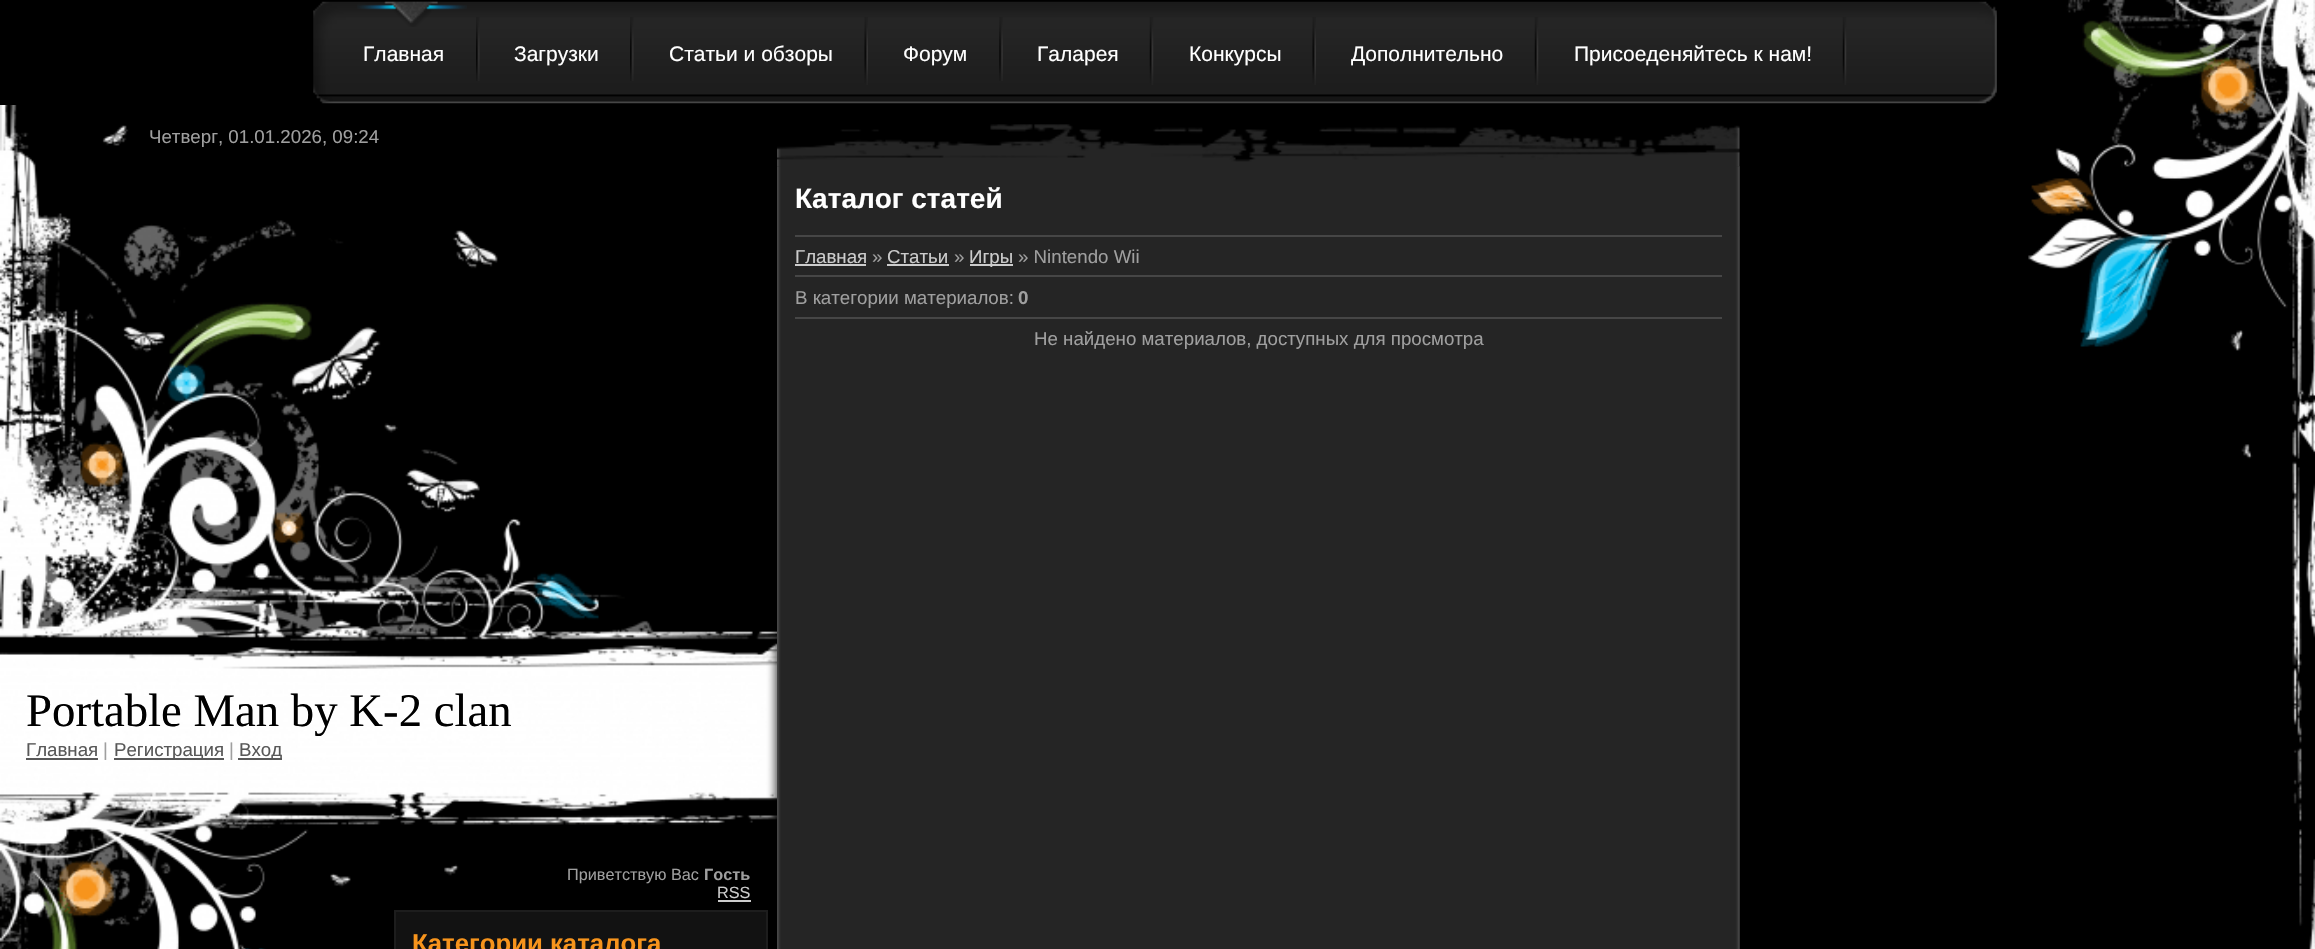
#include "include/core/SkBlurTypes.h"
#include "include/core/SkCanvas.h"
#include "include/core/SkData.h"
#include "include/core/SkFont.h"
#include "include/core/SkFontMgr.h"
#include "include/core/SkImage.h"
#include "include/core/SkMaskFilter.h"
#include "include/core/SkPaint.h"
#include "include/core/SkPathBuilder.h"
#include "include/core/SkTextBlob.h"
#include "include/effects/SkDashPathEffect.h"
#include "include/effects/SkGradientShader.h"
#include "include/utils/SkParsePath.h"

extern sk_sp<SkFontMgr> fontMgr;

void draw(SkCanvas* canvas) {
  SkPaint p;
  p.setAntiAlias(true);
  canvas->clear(SK_ColorBLACK);
  canvas->drawImageRect(SkImages::DeferredFromEncodedData(SkData::MakeFromFileName("images/1.png")), SkRect::MakeLTRB(2028, 0, 2315, 949), SkSamplingOptions());
  canvas->drawImageRect(SkImages::DeferredFromEncodedData(SkData::MakeFromFileName("images/2.png")), SkRect::MakeLTRB(313, 1, 1997, 104), SkSamplingOptions());
  canvas->drawImageRect(SkImages::DeferredFromEncodedData(SkData::MakeFromFileName("images/3.png")), SkRect::MakeLTRB(357, 1, 467, 27), SkSamplingOptions());
  canvas->drawImageRect(SkImages::DeferredFromEncodedData(SkData::MakeFromFileName("images/4.png")), SkRect::MakeLTRB(476, 17, 480, 81), SkSamplingOptions());
  canvas->drawImageRect(SkImages::DeferredFromEncodedData(SkData::MakeFromFileName("images/4.png")), SkRect::MakeLTRB(630, 17, 634, 81), SkSamplingOptions());
  canvas->drawImageRect(SkImages::DeferredFromEncodedData(SkData::MakeFromFileName("images/5.png")), SkRect::MakeLTRB(864, 17, 868, 85), SkSamplingOptions());
  canvas->drawImageRect(SkImages::DeferredFromEncodedData(SkData::MakeFromFileName("images/6.png")), SkRect::MakeLTRB(999, 17, 1003, 81), SkSamplingOptions());
  canvas->drawImageRect(SkImages::DeferredFromEncodedData(SkData::MakeFromFileName("images/7.png")), SkRect::MakeLTRB(1149, 17, 1154, 85), SkSamplingOptions());
  canvas->drawImageRect(SkImages::DeferredFromEncodedData(SkData::MakeFromFileName("images/5.png")), SkRect::MakeLTRB(1312, 17, 1316, 85), SkSamplingOptions());
  canvas->drawImageRect(SkImages::DeferredFromEncodedData(SkData::MakeFromFileName("images/8.png")), SkRect::MakeLTRB(1534, 17, 1539, 85), SkSamplingOptions());
  canvas->drawImageRect(SkImages::DeferredFromEncodedData(SkData::MakeFromFileName("images/7.png")), SkRect::MakeLTRB(1842, 17, 1847, 85), SkSamplingOptions());
  canvas->drawImageRect(SkImages::DeferredFromEncodedData(SkData::MakeFromFileName("images/9.png")), SkRect::MakeLTRB(0, 105, 777, 949), SkSamplingOptions());
  p.setColor(SkColorSetRGB(88, 88, 88));
  canvas->drawRect(SkRect::MakeLTRB(26, 758, 98, 760), p);
  canvas->drawRect(SkRect::MakeLTRB(114, 758, 224, 760), p);
  canvas->drawRect(SkRect::MakeLTRB(238, 758, 282, 760), p);
  p.setColor(SkColorSetRGB(204, 204, 204));
  canvas->drawRect(SkRect::MakeLTRB(718, 900, 751, 902), p);
  p.setColor(SkColorSetRGB(18, 18, 18));
  canvas->drawRect(SkRect::MakeLTRB(395, 911, 767, 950), p);
  p.setStyle(SkPaint::kStroke_Style);
  p.setStrokeWidth(2);
  p.setColor(SkColorSetRGB(29, 29, 29));
  canvas->drawRect(SkRect::MakeLTRB(395, 911, 767, 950), p);
  canvas->drawImageRect(SkImages::DeferredFromEncodedData(SkData::MakeFromFileName("images/10.png")), SkRect::MakeLTRB(777, 124, 1740, 166), SkSamplingOptions());
  p.setStyle(SkPaint::kFill_Style);
  p.setColor(SkColorSetRGB(37, 37, 37));
  canvas->drawRect(SkRect::MakeLTRB(777, 166, 1740, 949), p);
  canvas->drawImageRect(SkImages::DeferredFromEncodedData(SkData::MakeFromFileName("images/11.png")), SkRect::MakeLTRB(777, 166, 1740, 949), SkSamplingOptions());
  p.setColor(SkColorSetRGB(70, 70, 70));
  canvas->drawRect(SkRect::MakeLTRB(795, 235, 1722, 237), p);
  p.setColor(SkColorSetRGB(204, 204, 204));
  canvas->drawRect(SkRect::MakeLTRB(795, 264, 866, 266), p);
  canvas->drawRect(SkRect::MakeLTRB(887, 264, 949, 266), p);
  canvas->drawRect(SkRect::MakeLTRB(970, 264, 1013, 266), p);
  p.setColor(SkColorSetRGB(70, 70, 70));
  canvas->drawRect(SkRect::MakeLTRB(795, 275, 1722, 277), p);
  canvas->drawRect(SkRect::MakeLTRB(795, 317, 1722, 319), p);
  SkFont font1(fontMgr->matchFamilyStyle("Liberation Sans", SkFontStyle::Normal()), 21);
  font1.setSubpixel(true);
  p.setColor(SK_ColorWHITE);
  canvas->drawString("Главная", 363, 61, font1, p);
  canvas->drawString("Загрузки", 514, 61, font1, p);
  canvas->drawString("Статьи и обзоры", 669, 61, font1, p);
  canvas->drawString("Форум", 903, 61, font1, p);
  canvas->drawString("Галарея", 1037, 61, font1, p);
  canvas->drawString("Конкурсы", 1189, 61, font1, p);
  canvas->drawString("Дополнительно", 1351, 61, font1, p);
  canvas->drawString("Присоеденяйтесь к нам!", 1574, 61, font1, p);
  SkFont font2(fontMgr->matchFamilyStyle("Liberation Sans", SkFontStyle::Normal()), 18.7f);
  font2.setSubpixel(true);
  p.setColor(SkColorSetRGB(159, 159, 159));
  canvas->drawString("Четверг, 01.01.2026, 09:24", 149, 143, font2, p);
  SkFont font3(fontMgr->matchFamilyStyle("Liberation Serif", SkFontStyle::Normal()), 46.75f);
  font3.setSubpixel(true);
  p.setColor(SK_ColorBLACK);
  canvas->drawString("Portable Man by K-2 clan", 26, 726, font3, p);
  p.setColor(SkColorSetRGB(88, 88, 88));
  canvas->drawString("Главная", 26, 756, font2, p);
  p.setColor(SkColorSetRGB(159, 159, 159));
  canvas->drawString("|", 103, 756, font2, p);
  p.setColor(SkColorSetRGB(88, 88, 88));
  canvas->drawString("Регистрация", 114, 756, font2, p);
  p.setColor(SkColorSetRGB(159, 159, 159));
  canvas->drawString("|", 229, 756, font2, p);
  p.setColor(SkColorSetRGB(88, 88, 88));
  canvas->drawString("Вход", 239, 756, font2, p);
  SkFont font4(fontMgr->matchFamilyStyle("Liberation Sans", SkFontStyle::Normal()), 16.25f);
  font4.setSubpixel(true);
  p.setColor(SkColorSetRGB(159, 159, 159));
  canvas->drawString("Приветствую Вас", 567, 880, font4, p);
  SkFont font5(fontMgr->matchFamilyStyle("Liberation Sans", SkFontStyle::Bold()), 16.25f);
  font5.setSubpixel(true);
  canvas->drawString("Гость", 704, 880, font5, p);
  p.setColor(SkColorSetRGB(204, 204, 204));
  canvas->drawString("RSS", 717, 898, font4, p);
  SkFont font6(fontMgr->matchFamilyStyle("Liberation Sans", SkFontStyle::Bold()), 25.75f);
  font6.setSubpixel(true);
  p.setColor(SkColorSetRGB(247, 148, 28));
  canvas->drawString("Категории каталога", 412, 952, font6, p);
  SkFont font7(fontMgr->matchFamilyStyle("Liberation Sans", SkFontStyle::Bold()), 28);
  font7.setSubpixel(true);
  p.setColor(SK_ColorWHITE);
  canvas->drawString("Каталог статей", 795, 208, font7, p);
  p.setColor(SkColorSetRGB(204, 204, 204));
  canvas->drawString("Главная", 795, 263, font2, p);
  p.setColor(SkColorSetRGB(159, 159, 159));
  canvas->drawString("»", 872, 263, font2, p);
  p.setColor(SkColorSetRGB(204, 204, 204));
  canvas->drawString("Статьи", 887, 263, font2, p);
  p.setColor(SkColorSetRGB(159, 159, 159));
  canvas->drawString("»", 954, 263, font2, p);
  p.setColor(SkColorSetRGB(204, 204, 204));
  canvas->drawString("Игры", 969, 263, font2, p);
  p.setColor(SkColorSetRGB(159, 159, 159));
  canvas->drawString("» Nintendo Wii", 1018, 263, font2, p);
  canvas->drawString("В категории материалов:", 795, 304, font2, p);
  SkFont font8(fontMgr->matchFamilyStyle("Liberation Sans", SkFontStyle::Bold()), 18.7f);
  font8.setSubpixel(true);
  canvas->drawString("0", 1018, 304, font8, p);
  canvas->drawString("Не найдено материалов, доступных для просмотра", 1034, 345, font2, p);
}
